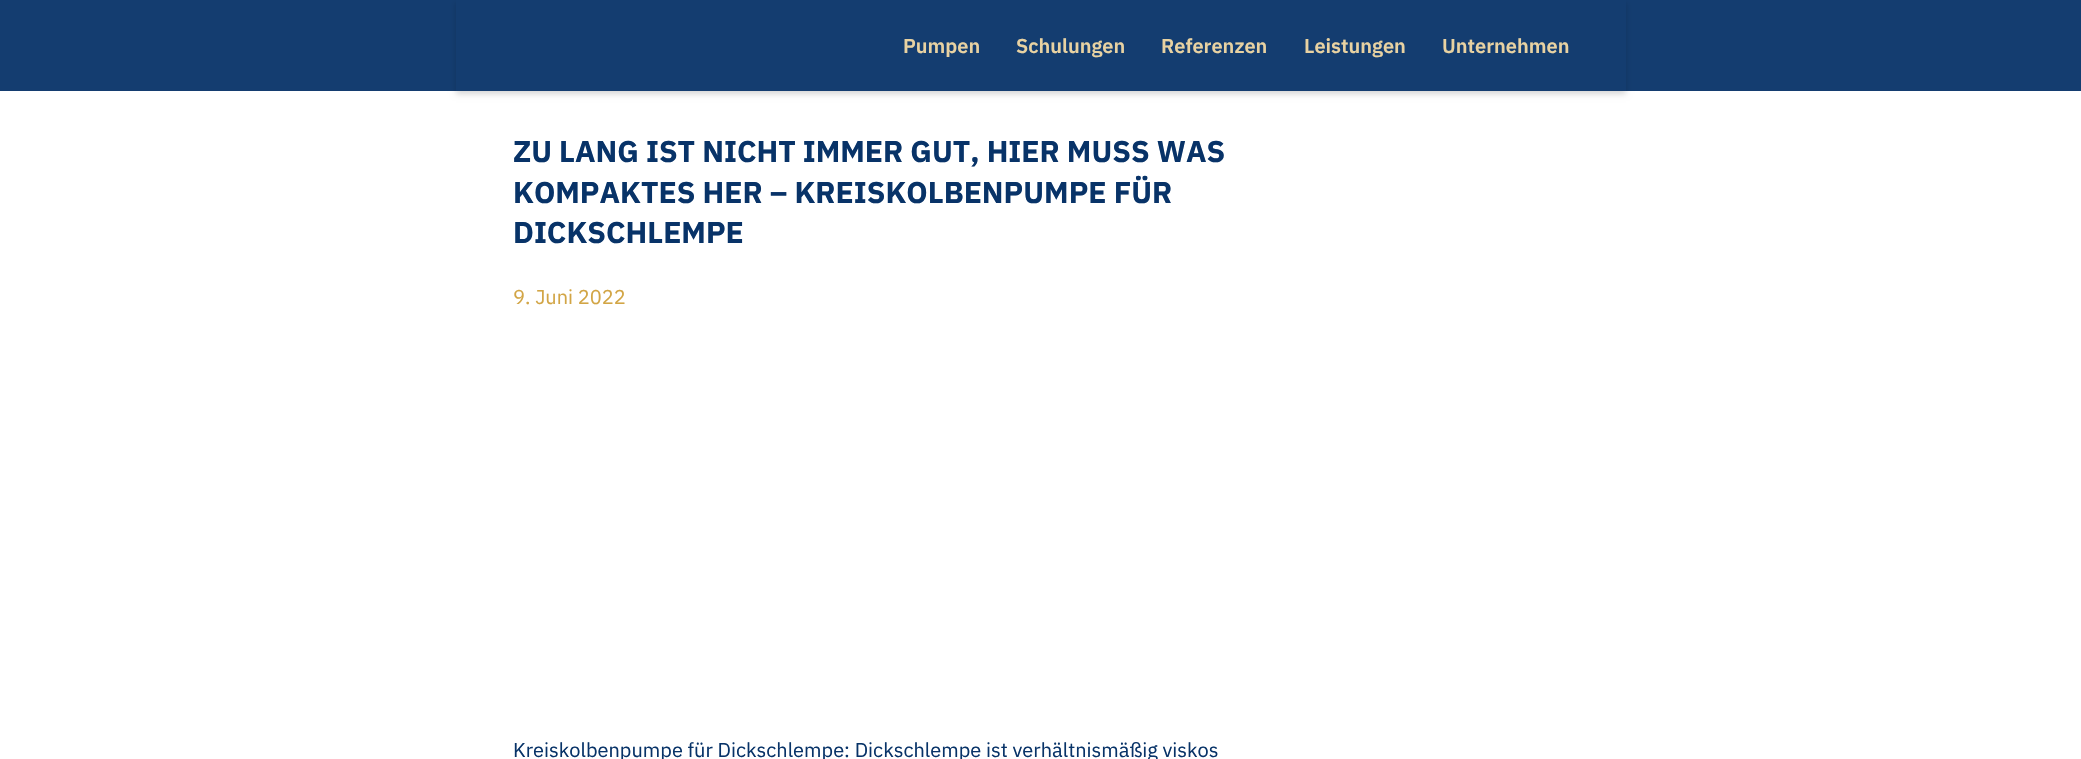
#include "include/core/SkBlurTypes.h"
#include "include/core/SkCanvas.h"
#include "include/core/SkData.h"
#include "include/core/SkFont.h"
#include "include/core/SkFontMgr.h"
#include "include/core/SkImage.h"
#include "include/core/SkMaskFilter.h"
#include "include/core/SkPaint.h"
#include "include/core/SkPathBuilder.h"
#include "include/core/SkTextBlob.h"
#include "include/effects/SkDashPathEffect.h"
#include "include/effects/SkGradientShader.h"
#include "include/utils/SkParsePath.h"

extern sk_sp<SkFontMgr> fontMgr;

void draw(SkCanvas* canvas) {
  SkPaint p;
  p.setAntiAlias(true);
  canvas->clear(SK_ColorWHITE);
  p.setColor(SkColorSetRGB(20, 61, 112));
  canvas->drawRect(SkRect::MakeLTRB(0, 0, 2081, 91), p);
  canvas->save();
  canvas->clipPath(SkPathBuilder(SkPathFillType::kEvenOdd).moveTo(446, 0).lineTo(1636, 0).lineTo(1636, 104).lineTo(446, 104).close().moveTo(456, 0).lineTo(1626, 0).lineTo(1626, 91).lineTo(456, 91).close().detach(), true);
  p.setColor(SkColorSetARGB(41, 0, 0, 0));
  p.setMaskFilter(SkMaskFilter::MakeBlur(kNormal_SkBlurStyle, 3));
  canvas->drawRect(SkRect::MakeLTRB(456, 3, 1626, 94), p);
  p.setMaskFilter(nullptr);
  canvas->restore();
  SkFont font1(fontMgr->matchFamilyStyle("IBM Plex Sans", SkFontStyle(600, SkFontStyle::kNormal_Width, SkFontStyle::kUpright_Slant)), 20);
  font1.setSubpixel(true);
  p.setColor(SkColorSetRGB(232, 210, 162));
  canvas->drawString("Pumpen", 903, 53, font1, p);
  canvas->drawString("Schulungen", 1016, 53, font1, p);
  canvas->drawString("Referenzen", 1161, 53, font1, p);
  canvas->drawString("Leistungen", 1304, 53, font1, p);
  canvas->drawString("Unternehmen", 1442, 53, font1, p);
  SkFont font2(fontMgr->matchFamilyStyle("IBM Plex Sans", SkFontStyle::Bold()), 30);
  font2.setSubpixel(true);
  p.setColor(SkColorSetRGB(8, 51, 104));
  canvas->drawString("ZU LANG IST NICHT IMMER GUT, HIER MUSS WAS", 513, 162, font2, p);
  canvas->drawString("KOMPAKTES HER – KREISKOLBENPUMPE FÜR", 513, 203, font2, p);
  canvas->drawString("DICKSCHLEMPE", 513, 243, font2, p);
  SkFont font3(fontMgr->matchFamilyStyle("IBM Plex Sans", SkFontStyle::Normal()), 20);
  font3.setSubpixel(true);
  p.setColor(SkColorSetRGB(210, 165, 69));
  canvas->drawString("9. Juni 2022", 513, 304, font3, p);
  p.setColor(SkColorSetRGB(8, 51, 104));
  canvas->drawString("Kreiskolbenpumpe für Dickschlempe: Dickschlempe ist verhältnismäßig viskos", 513, 757, font3, p);
}
